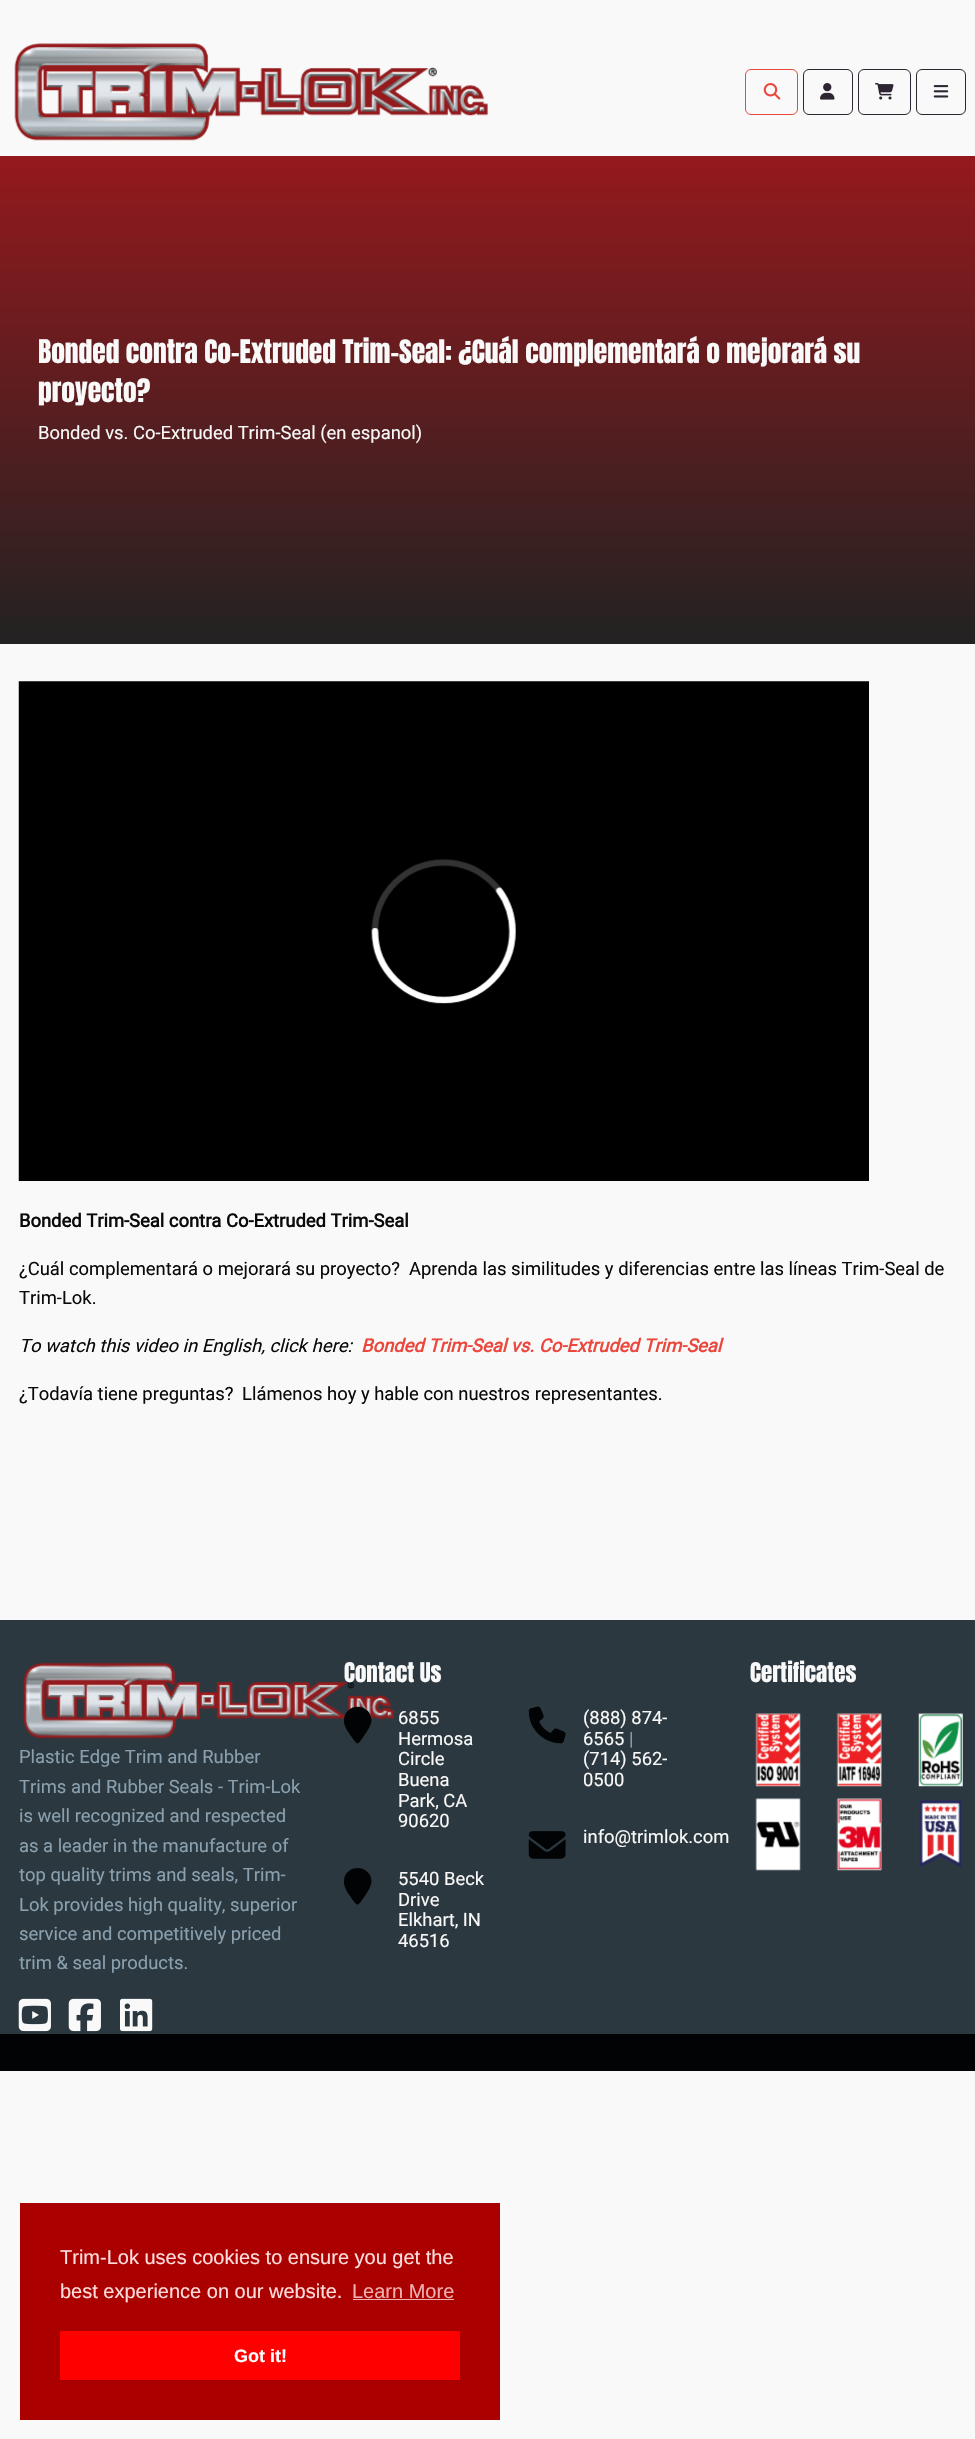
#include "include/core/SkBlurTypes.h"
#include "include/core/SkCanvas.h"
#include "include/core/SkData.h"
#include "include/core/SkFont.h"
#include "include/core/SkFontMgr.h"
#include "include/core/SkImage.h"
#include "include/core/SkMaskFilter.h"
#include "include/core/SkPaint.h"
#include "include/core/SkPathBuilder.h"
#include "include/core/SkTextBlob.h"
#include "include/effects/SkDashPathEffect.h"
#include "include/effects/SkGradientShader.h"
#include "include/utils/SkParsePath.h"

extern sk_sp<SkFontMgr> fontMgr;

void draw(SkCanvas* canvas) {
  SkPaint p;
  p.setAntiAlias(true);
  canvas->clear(SkColorSetRGB(249, 249, 249));
  canvas->drawImageRect(SkImages::DeferredFromEncodedData(SkData::MakeFromFileName("images/1.png")), SkRect::MakeLTRB(14, 43, 488, 141), SkSamplingOptions());
  p.setStyle(SkPaint::kStroke_Style);
  p.setStrokeWidth(1);
  p.setColor(SkColorSetRGB(235, 71, 61));
  canvas->drawRoundRect(SkRect::MakeLTRB(745.5f, 69.5f, 797.5f, 114.5f), 5.5f, 5.5f, p);
  canvas->drawImageRect(SkImages::DeferredFromEncodedData(SkData::MakeFromFileName("images/2.png")), SkRect::MakeLTRB(763, 83, 781, 100), SkSamplingOptions());
  p.setColor(SkColorSetRGB(46, 37, 50));
  canvas->drawRoundRect(SkRect::MakeLTRB(803.5f, 69.5f, 852.5f, 114.5f), 5.5f, 5.5f, p);
  canvas->drawImageRect(SkImages::DeferredFromEncodedData(SkData::MakeFromFileName("images/3.png")), SkRect::MakeLTRB(820, 83, 835, 100), SkSamplingOptions());
  canvas->drawRoundRect(SkRect::MakeLTRB(858.5f, 69.5f, 910.5f, 114.5f), 5.5f, 5.5f, p);
  canvas->drawImageRect(SkImages::DeferredFromEncodedData(SkData::MakeFromFileName("images/4.png")), SkRect::MakeLTRB(875, 83, 894, 100), SkSamplingOptions());
  canvas->drawRoundRect(SkRect::MakeLTRB(916.5f, 69.5f, 965.5f, 114.5f), 5.5f, 5.5f, p);
  canvas->drawImageRect(SkImages::DeferredFromEncodedData(SkData::MakeFromFileName("images/5.png")), SkRect::MakeLTRB(933, 85, 949, 98), SkSamplingOptions());
  p.setStyle(SkPaint::kFill_Style);
  {
    const SkColor colors[] = {SkColorSetRGB(148, 25, 29), SkColorSetRGB(34, 34, 34)};
    const float stops[] = {0, 1};
    const SkPoint ends[] = {{488, 156}, {488, 644}};
    p.setShader(SkGradientShader::MakeLinear(ends, colors, stops, 2, SkTileMode::kClamp));
    p.setAlpha(255);
  }
  canvas->drawRect(SkRect::MakeLTRB(0, 156, 975, 644), p);
  canvas->drawImageRect(SkImages::DeferredFromEncodedData(SkData::MakeFromFileName("images/6.png")), SkRect::MakeLTRB(18, 681, 869, 1181), SkSamplingOptions());
  p.setShader(nullptr);
  p.setColor(SkColorSetRGB(44, 56, 64));
  canvas->drawRect(SkRect::MakeLTRB(0, 1620, 975, 2034), p);
  canvas->drawImageRect(SkImages::DeferredFromEncodedData(SkData::MakeFromFileName("images/7.png")), SkRect::MakeLTRB(23, 1662, 394, 1739), SkSamplingOptions());
  canvas->drawImageRect(SkImages::DeferredFromEncodedData(SkData::MakeFromFileName("images/8.png")), SkRect::MakeLTRB(18, 1998, 51, 2032), SkSamplingOptions());
  canvas->drawImageRect(SkImages::DeferredFromEncodedData(SkData::MakeFromFileName("images/9.png")), SkRect::MakeLTRB(68, 1998, 101, 2032), SkSamplingOptions());
  canvas->drawImageRect(SkImages::DeferredFromEncodedData(SkData::MakeFromFileName("images/10.png")), SkRect::MakeLTRB(120, 1998, 153, 2032), SkSamplingOptions());
  p.setColor(SkColorSetRGB(2, 3, 4));
  canvas->drawPath(SkPathBuilder().moveTo(371.5f, 1720.5f).cubicTo(371, 1725.5f, 367.5f, 1731, 364.5f, 1735).cubicTo(357.5f, 1745.5f, 358, 1746.5f, 351, 1736).cubicTo(348, 1732, 343.5f, 1725.5f, 344, 1720.5f).cubicTo(344, 1702.5f, 371, 1702, 371.5f, 1720.5f).close().detach(), p);
  canvas->drawPath(SkPathBuilder().moveTo(371.5f, 1881.5f).cubicTo(371, 1887, 367.5f, 1892, 364.5f, 1896.5f).cubicTo(357.5f, 1906.5f, 358, 1907.5f, 351, 1897.5f).cubicTo(348, 1893, 343.5f, 1887, 344, 1881.5f).cubicTo(344, 1863.5f, 371, 1863.5f, 371.5f, 1881.5f).close().detach(), p);
  canvas->drawImageRect(SkImages::DeferredFromEncodedData(SkData::MakeFromFileName("images/11.png")), SkRect::MakeLTRB(528, 1706, 566, 1744), SkSamplingOptions());
  canvas->drawImageRect(SkImages::DeferredFromEncodedData(SkData::MakeFromFileName("images/12.png")), SkRect::MakeLTRB(528, 1831, 566, 1859), SkSamplingOptions());
  canvas->drawImageRect(SkImages::DeferredFromEncodedData(SkData::MakeFromFileName("images/13.png")), SkRect::MakeLTRB(755, 1713, 801, 1787), SkSamplingOptions());
  canvas->drawImageRect(SkImages::DeferredFromEncodedData(SkData::MakeFromFileName("images/14.png")), SkRect::MakeLTRB(836, 1713, 882, 1787), SkSamplingOptions());
  canvas->drawImageRect(SkImages::DeferredFromEncodedData(SkData::MakeFromFileName("images/15.png")), SkRect::MakeLTRB(918, 1713, 963, 1787), SkSamplingOptions());
  canvas->drawImageRect(SkImages::DeferredFromEncodedData(SkData::MakeFromFileName("images/16.png")), SkRect::MakeLTRB(755, 1798, 801, 1871), SkSamplingOptions());
  canvas->drawImageRect(SkImages::DeferredFromEncodedData(SkData::MakeFromFileName("images/17.png")), SkRect::MakeLTRB(836, 1798, 882, 1871), SkSamplingOptions());
  canvas->drawImageRect(SkImages::DeferredFromEncodedData(SkData::MakeFromFileName("images/18.png")), SkRect::MakeLTRB(919, 1800, 962, 1868), SkSamplingOptions());
  canvas->drawRect(SkRect::MakeLTRB(0, 2034, 975, 2071), p);
  p.setColor(SkColorSetRGB(170, 0, 0));
  canvas->drawRect(SkRect::MakeLTRB(20, 2203, 500, 2420), p);
  p.setColor(SkColorSetRGB(238, 177, 177));
  canvas->drawRect(SkRect::MakeLTRB(353, 2299, 454, 2300), p);
  p.setColor(SkColorSetRGB(255, 0, 0));
  canvas->drawRect(SkRect::MakeLTRB(60, 2331, 460, 2380), p);
  SkFont font1(fontMgr->matchFamilyStyle("Anton", SkFontStyle::Normal()), 27.5f);
  font1.setSubpixel(true);
  p.setColor(SkColorSetRGB(249, 249, 249));
  canvas->drawString("Bonded contra Co-Extruded Trim-Seal: ¿Cuál complementará o mejorará su", 38, 363, font1, p);
  canvas->drawString("proyecto?", 38, 402, font1, p);
  SkFont font2(fontMgr->matchFamilyStyle("Roboto", SkFontStyle::Normal()), 18.4f);
  font2.setSubpixel(true);
  canvas->drawString("Bonded vs. Co-Extruded Trim-Seal (en espanol)", 38, 439, font2, p);
  SkFont font3(fontMgr->matchFamilyStyle("Roboto", SkFontStyle::Bold()), 18.4f);
  font3.setSubpixel(true);
  p.setColor(SkColorSetRGB(10, 10, 10));
  canvas->drawString("Bonded Trim-Seal contra Co-Extruded Trim-Seal", 19, 1227, font3, p);
  canvas->drawString("¿Cuál complementará o mejorará su proyecto?", 19, 1275, font2, p);
  canvas->drawString("Aprenda las similitudes y diferencias entre las líneas Trim-Seal de", 409, 1275, font2, p);
  canvas->drawString("Trim-Lok.", 19, 1304, font2, p);
  SkFont font4(fontMgr->matchFamilyStyle("Roboto", SkFontStyle::Italic()), 18.4f);
  font4.setSubpixel(true);
  canvas->drawString("To watch this video in English, click here:", 19, 1352, font4, p);
  SkFont font5(fontMgr->matchFamilyStyle("Roboto", SkFontStyle::BoldItalic()), 18.4f);
  font5.setSubpixel(true);
  p.setColor(SkColorSetRGB(235, 71, 61));
  canvas->drawString("Bonded Trim-Seal vs. Co-Extruded Trim-Seal", 361, 1352, font5, p);
  p.setColor(SkColorSetRGB(10, 10, 10));
  canvas->drawString("¿Todavía tiene preguntas?", 19, 1400, font2, p);
  canvas->drawString("Llámenos hoy y hable con nuestros representantes.", 242, 1400, font2, p);
  p.setColor(SkColorSetRGB(138, 160, 174));
  canvas->drawString("Plastic Edge Trim and Rubber", 19, 1763, font2, p);
  canvas->drawString("Trims and Rubber Seals - Trim-Lok", 19, 1793, font2, p);
  canvas->drawString("is well recognized and respected", 19, 1822, font2, p);
  canvas->drawString("as a leader in the manufacture of", 19, 1852, font2, p);
  canvas->drawString("top quality trims and seals, Trim-", 19, 1881, font2, p);
  canvas->drawString("Lok provides high quality, superior", 19, 1911, font2, p);
  canvas->drawString("service and competitively priced", 19, 1940, font2, p);
  canvas->drawString("trim & seal products.", 19, 1969, font2, p);
  SkFont font6(fontMgr->matchFamilyStyle("Anton", SkFontStyle::Normal()), 23);
  font6.setSubpixel(true);
  p.setColor(SkColorSetRGB(249, 249, 249));
  canvas->drawString("Contact Us", 344, 1682, font6, p);
  canvas->drawString("6855", 398, 1724, font2, p);
  canvas->drawString("Hermosa", 398, 1745, font2, p);
  canvas->drawString("Circle", 398, 1765, font2, p);
  canvas->drawString("Buena", 398, 1786, font2, p);
  canvas->drawString("Park, CA", 398, 1807, font2, p);
  canvas->drawString("90620", 398, 1827, font2, p);
  canvas->drawString("5540 Beck", 398, 1885, font2, p);
  canvas->drawString("Drive", 398, 1906, font2, p);
  canvas->drawString("Elkhart, IN", 398, 1926, font2, p);
  canvas->drawString("46516", 398, 1947, font2, p);
  canvas->drawString("(888) 874-", 583, 1724, font2, p);
  canvas->drawString("6565", 583, 1745, font2, p);
  p.setColor(SkColorSetRGB(138, 160, 174));
  canvas->drawString("|", 629, 1745, font2, p);
  p.setColor(SkColorSetRGB(249, 249, 249));
  canvas->drawString("(714) 562-", 583, 1765, font2, p);
  canvas->drawString("0500", 583, 1786, font2, p);
  canvas->drawString("info@trimlok.com", 583, 1843, font2, p);
  canvas->drawString("Certificates", 750, 1682, font6, p);
  SkFont font7(fontMgr->matchFamilyStyle("Liberation Sans", SkFontStyle::Normal()), 20);
  font7.setSubpixel(true);
  p.setColor(SkColorSetRGB(255, 221, 221));
  canvas->drawString("Trim-Lok uses cookies to ensure you get the", 60, 2264, font7, p);
  canvas->drawString("best experience on our website.", 60, 2298, font7, p);
  p.setColor(SkColorSetRGB(238, 177, 177));
  canvas->drawString("Learn More", 352, 2298, font7, p);
  SkFont font8(fontMgr->matchFamilyStyle("Liberation Sans", SkFontStyle::Bold()), 18);
  font8.setSubpixel(true);
  p.setColor(SK_ColorWHITE);
  canvas->drawString("Got it!", 234, 2362, font8, p);
}
